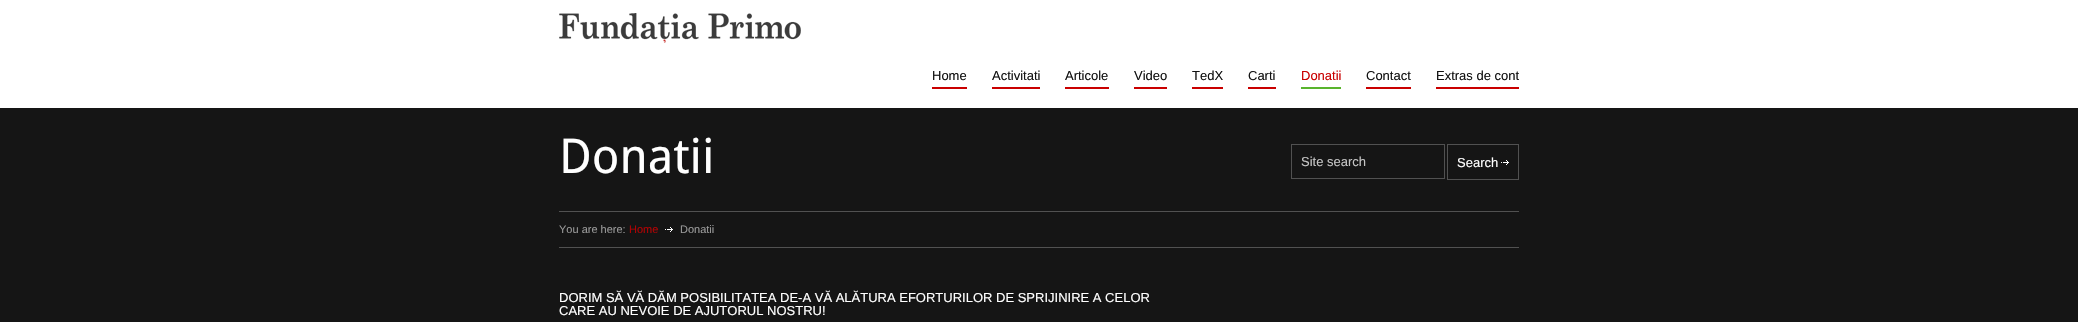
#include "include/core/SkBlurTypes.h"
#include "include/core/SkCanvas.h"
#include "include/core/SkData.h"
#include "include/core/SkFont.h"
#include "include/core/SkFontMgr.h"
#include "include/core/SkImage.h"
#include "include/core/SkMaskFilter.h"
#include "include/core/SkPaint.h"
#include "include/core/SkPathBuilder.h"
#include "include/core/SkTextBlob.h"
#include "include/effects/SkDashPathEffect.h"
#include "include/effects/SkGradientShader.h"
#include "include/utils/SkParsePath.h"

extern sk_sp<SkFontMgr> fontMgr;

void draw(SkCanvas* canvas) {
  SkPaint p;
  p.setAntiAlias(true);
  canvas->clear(SkColorSetRGB(21, 21, 21));
  p.setColor(SK_ColorWHITE);
  canvas->drawRect(SkRect::MakeLTRB(0, 0, 2078, 108), p);
  canvas->drawImageRect(SkImages::DeferredFromEncodedData(SkData::MakeFromFileName("images/1.png")), SkRect::MakeLTRB(559, 13, 801, 43), SkSamplingOptions());
  p.setColor(SkColorSetRGB(201, 0, 0));
  canvas->drawRect(SkRect::MakeLTRB(932, 87, 967, 89), p);
  canvas->drawRect(SkRect::MakeLTRB(992, 87, 1040, 89), p);
  canvas->drawRect(SkRect::MakeLTRB(1065, 87, 1109, 89), p);
  canvas->drawRect(SkRect::MakeLTRB(1134, 87, 1167, 89), p);
  canvas->drawRect(SkRect::MakeLTRB(1192, 87, 1223, 89), p);
  canvas->drawRect(SkRect::MakeLTRB(1248, 87, 1276, 89), p);
  p.setColor(SkColorSetRGB(89, 180, 45));
  canvas->drawRect(SkRect::MakeLTRB(1301, 87, 1341, 89), p);
  p.setColor(SkColorSetRGB(201, 0, 0));
  canvas->drawRect(SkRect::MakeLTRB(1366, 87, 1411, 89), p);
  canvas->drawRect(SkRect::MakeLTRB(1436, 87, 1519, 89), p);
  p.setStyle(SkPaint::kStroke_Style);
  p.setStrokeWidth(1);
  p.setColor(SkColorSetRGB(81, 81, 81));
  canvas->drawRect(SkRect::MakeLTRB(1291.5f, 144.5f, 1444.5f, 178.5f), p);
  canvas->drawImageRect(SkImages::DeferredFromEncodedData(SkData::MakeFromFileName("images/2.png")), SkRect::MakeLTRB(1501, 160, 1509, 165), SkSamplingOptions());
  canvas->drawRect(SkRect::MakeLTRB(1447.5f, 144.5f, 1518.5f, 179.5f), p);
  p.setStyle(SkPaint::kFill_Style);
  canvas->drawRect(SkRect::MakeLTRB(559, 211, 1519, 212), p);
  canvas->drawRect(SkRect::MakeLTRB(559, 247, 1519, 248), p);
  canvas->drawImageRect(SkImages::DeferredFromEncodedData(SkData::MakeFromFileName("images/2.png")), SkRect::MakeLTRB(665, 227, 673, 232), SkSamplingOptions());
  SkFont font1(fontMgr->matchFamilyStyle("Liberation Sans", SkFontStyle::Normal()), 13);
  font1.setSubpixel(true);
  p.setColor(SkColorSetRGB(18, 18, 18));
  canvas->drawString("Home", 932, 80, font1, p);
  canvas->drawString("Activitati", 992, 80, font1, p);
  canvas->drawString("Articole", 1065, 80, font1, p);
  canvas->drawString("Video", 1134, 80, font1, p);
  canvas->drawString("TedX", 1192, 80, font1, p);
  canvas->drawString("Carti", 1248, 80, font1, p);
  p.setColor(SkColorSetRGB(201, 0, 0));
  canvas->drawString("Donatii", 1301, 80, font1, p);
  p.setColor(SkColorSetRGB(18, 18, 18));
  canvas->drawString("Contact", 1366, 80, font1, p);
  canvas->drawString("Extras de cont", 1436, 80, font1, p);
  SkFont font2(fontMgr->matchFamilyStyle("Droid Sans", SkFontStyle::Normal()), 48);
  font2.setSubpixel(true);
  p.setColor(SK_ColorWHITE);
  canvas->drawString("Donatii", 559, 173, font2, p);
  p.setColor(SkColorSetRGB(197, 197, 197));
  canvas->drawString("Site search", 1301, 166, font1, p);
  p.setColor(SK_ColorWHITE);
  canvas->drawString("Search", 1457, 167, font1, p);
  SkFont font3(fontMgr->matchFamilyStyle("Liberation Sans", SkFontStyle::Normal()), 11);
  font3.setSubpixel(true);
  p.setColor(SkColorSetRGB(153, 153, 153));
  canvas->drawString("You are here:", 559, 233, font3, p);
  p.setColor(SkColorSetRGB(176, 2, 3));
  canvas->drawString("Home", 629, 233, font3, p);
  p.setColor(SkColorSetRGB(153, 153, 153));
  canvas->drawString("Donatii", 680, 233, font3, p);
  p.setColor(SK_ColorWHITE);
  canvas->drawString("DORIM SĂ VĂ DĂM POSIBILITATEA DE-A VĂ ALĂTURA EFORTURILOR DE SPRIJINIRE A CELOR", 559, 302, font1, p);
  canvas->drawString("CARE AU NEVOIE DE AJUTORUL NOSTRU!", 559, 315, font1, p);
}
